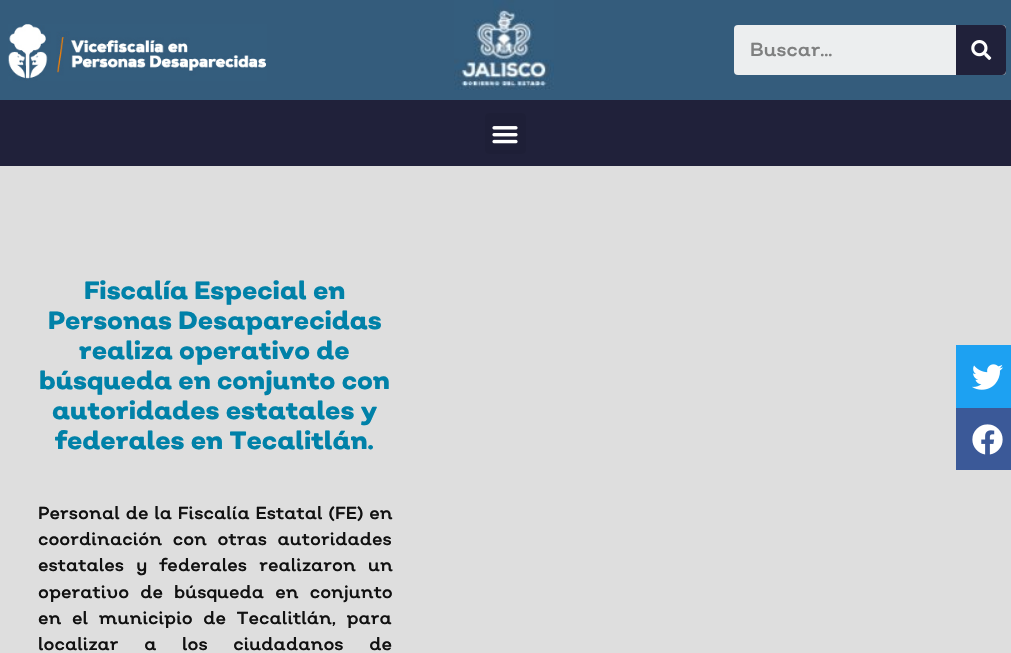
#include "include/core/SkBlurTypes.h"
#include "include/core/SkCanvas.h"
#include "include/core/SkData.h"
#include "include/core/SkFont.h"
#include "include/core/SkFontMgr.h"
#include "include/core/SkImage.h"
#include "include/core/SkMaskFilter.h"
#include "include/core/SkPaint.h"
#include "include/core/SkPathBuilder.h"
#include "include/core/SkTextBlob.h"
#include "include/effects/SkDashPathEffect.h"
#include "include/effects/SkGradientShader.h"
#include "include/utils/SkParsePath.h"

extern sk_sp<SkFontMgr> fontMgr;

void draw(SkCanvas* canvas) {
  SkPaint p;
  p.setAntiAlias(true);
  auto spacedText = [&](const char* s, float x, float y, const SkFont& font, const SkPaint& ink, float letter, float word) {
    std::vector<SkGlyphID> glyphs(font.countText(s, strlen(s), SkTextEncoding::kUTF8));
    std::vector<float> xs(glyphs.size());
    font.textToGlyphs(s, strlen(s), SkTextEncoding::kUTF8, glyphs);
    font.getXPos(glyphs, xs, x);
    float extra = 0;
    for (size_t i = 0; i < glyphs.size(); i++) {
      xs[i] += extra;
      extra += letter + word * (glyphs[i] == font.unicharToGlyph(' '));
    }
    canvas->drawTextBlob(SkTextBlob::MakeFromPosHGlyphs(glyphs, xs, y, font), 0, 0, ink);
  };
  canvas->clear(SkColorSetRGB(52, 92, 124));
  canvas->drawImageRect(SkImages::DeferredFromEncodedData(SkData::MakeFromFileName("images/1.png")), SkRect::MakeLTRB(8, 24, 267, 81), SkSamplingOptions());
  canvas->drawImageRect(SkImages::DeferredFromEncodedData(SkData::MakeFromFileName("images/2.png")), SkRect::MakeLTRB(454, 0, 554, 90), SkSamplingOptions());
  p.setColor(SkColorSetRGB(236, 238, 239));
  canvas->drawRoundRect(SkRect::MakeLTRB(734, 25, 1006, 75), 4, 4, p);
  p.setColor(SkColorSetRGB(32, 33, 58));
  canvas->drawPath(SkPathBuilder().moveTo(956, 25).lineTo(1002, 25).cubicTo(1004, 25, 1006, 27, 1006, 29).lineTo(1006, 71).cubicTo(1006, 73, 1004, 75, 1002, 75).lineTo(956, 75).close().detach(), p);
  canvas->drawImageRect(SkImages::DeferredFromEncodedData(SkData::MakeFromFileName("images/3.png")), SkRect::MakeLTRB(971, 40, 992, 60), SkSamplingOptions());
  canvas->drawRect(SkRect::MakeLTRB(0, 100, 1011, 166), p);
  p.setColor(SkColorSetRGB(30, 31, 55));
  canvas->drawRoundRect(SkRect::MakeLTRB(485, 113, 526, 154), 4, 4, p);
  canvas->drawImageRect(SkImages::DeferredFromEncodedData(SkData::MakeFromFileName("images/4.png")), SkRect::MakeLTRB(492, 126, 518, 144), SkSamplingOptions());
  p.setColor(SkColorSetRGB(222, 222, 222));
  canvas->drawRect(SkRect::MakeLTRB(0, 166, 1011, 653), p);
  p.setColor(SkColorSetRGB(29, 161, 242));
  canvas->drawRect(SkRect::MakeLTRB(956, 345, 1011, 408), p);
  canvas->drawImageRect(SkImages::DeferredFromEncodedData(SkData::MakeFromFileName("images/5.png")), SkRect::MakeLTRB(972, 364, 1003, 390), SkSamplingOptions());
  p.setColor(SkColorSetRGB(59, 89, 152));
  canvas->drawRect(SkRect::MakeLTRB(956, 408, 1011, 470), p);
  canvas->drawImageRect(SkImages::DeferredFromEncodedData(SkData::MakeFromFileName("images/6.png")), SkRect::MakeLTRB(972, 424, 1003, 455), SkSamplingOptions());
  SkFont font1(fontMgr->matchFamilyStyle("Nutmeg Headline", SkFontStyle::Normal()), 18.75f);
  font1.setSubpixel(true);
  p.setColor(SkColorSetRGB(127, 128, 128));
  canvas->drawString("Buscar...", 750, 56, font1, p);
  SkFont font2(fontMgr->matchFamilyStyle("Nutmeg", SkFontStyle(800, SkFontStyle::kNormal_Width, SkFontStyle::kUpright_Slant)), 25);
  font2.setSubpixel(true);
  p.setColor(SkColorSetRGB(0, 129, 168));
  canvas->drawString("Fiscalía Especial en", 84, 299, font2, p);
  canvas->drawString("Personas Desaparecidas", 48, 329, font2, p);
  canvas->drawString("realiza operativo de", 79, 359, font2, p);
  canvas->drawString("búsqueda en conjunto con", 39, 389, font2, p);
  canvas->drawString("autoridades estatales y", 52, 419, font2, p);
  canvas->drawString("federales en Tecalitlán.", 55, 449, font2, p);
  SkFont font3(fontMgr->matchFamilyStyle("Nutmeg Headline", SkFontStyle::Normal()), 17.5f);
  font3.setSubpixel(true);
  p.setColor(SkColorSetRGB(17, 17, 17));
  spacedText("Personal de la Fiscalía Estatal (FE) en", 38, 519, font3, p, 0, 1.25f);
  spacedText("coordinación con otras autoridades", 38, 545, font3, p, 0, 6);
  spacedText("estatales y federales realizaron un", 38, 571, font3, p, 0, 7.5f);
  spacedText("operativo de búsqueda en conjunto", 38, 598, font3, p, 0, 6.5f);
  spacedText("en el municipio de Tecalitlán, para", 38, 624, font3, p, 0, 6);
  spacedText("localizar a los ciudadanos de", 38, 650, font3, p, 0, 21);
}
